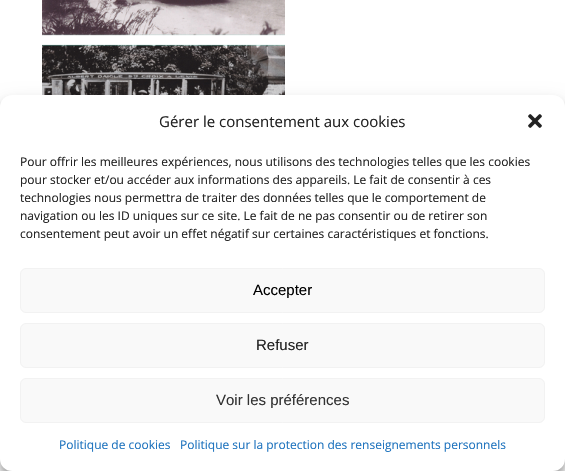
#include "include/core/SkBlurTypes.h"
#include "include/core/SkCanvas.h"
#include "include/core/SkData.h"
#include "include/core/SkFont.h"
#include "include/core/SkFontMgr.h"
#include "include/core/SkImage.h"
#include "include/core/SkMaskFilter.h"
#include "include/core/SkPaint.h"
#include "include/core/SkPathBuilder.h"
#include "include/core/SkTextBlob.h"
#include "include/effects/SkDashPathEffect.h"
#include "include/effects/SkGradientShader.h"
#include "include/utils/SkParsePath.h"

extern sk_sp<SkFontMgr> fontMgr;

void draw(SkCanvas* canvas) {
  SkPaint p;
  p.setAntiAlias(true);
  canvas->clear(SK_ColorWHITE);
  canvas->drawImageRect(SkImages::DeferredFromEncodedData(SkData::MakeFromFileName("images/1.png")), SkRect::MakeLTRB(42, 0, 285, 95), SkSamplingOptions());
  p.setColor(SkColorSetARGB(59, 0, 0, 0));
  p.setMaskFilter(SkMaskFilter::MakeBlur(kNormal_SkBlurStyle, 3));
  canvas->drawRoundRect(SkRect::MakeLTRB(0, 101, 565, 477), 12, 12, p);
  p.setMaskFilter(nullptr);
  p.setColor(SkColorSetARGB(48, 0, 0, 0));
  p.setMaskFilter(SkMaskFilter::MakeBlur(kNormal_SkBlurStyle, 10));
  canvas->drawRoundRect(SkRect::MakeLTRB(0, 105, 565, 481), 12, 12, p);
  p.setMaskFilter(nullptr);
  p.setColor(SK_ColorWHITE);
  canvas->drawRoundRect(SkRect::MakeLTRB(0, 95, 565, 471), 12, 12, p);
  canvas->drawImageRect(SkImages::DeferredFromEncodedData(SkData::MakeFromFileName("images/2.png")), SkRect::MakeLTRB(528, 114, 542, 128), SkSamplingOptions());
  p.setColor(SkColorSetRGB(249, 249, 249));
  canvas->drawRoundRect(SkRect::MakeLTRB(20.5f, 268.5f, 544.5f, 312.5f), 5.5f, 5.5f, p);
  p.setStyle(SkPaint::kStroke_Style);
  p.setStrokeWidth(1);
  p.setColor(SkColorSetRGB(242, 242, 242));
  canvas->drawRoundRect(SkRect::MakeLTRB(20.5f, 268.5f, 544.5f, 312.5f), 5.5f, 5.5f, p);
  p.setStyle(SkPaint::kFill_Style);
  p.setColor(SkColorSetRGB(249, 249, 249));
  canvas->drawRoundRect(SkRect::MakeLTRB(20.5f, 323.5f, 544.5f, 367.5f), 5.5f, 5.5f, p);
  p.setStyle(SkPaint::kStroke_Style);
  p.setColor(SkColorSetRGB(242, 242, 242));
  canvas->drawRoundRect(SkRect::MakeLTRB(20.5f, 323.5f, 544.5f, 367.5f), 5.5f, 5.5f, p);
  p.setStyle(SkPaint::kFill_Style);
  p.setColor(SkColorSetRGB(249, 249, 249));
  canvas->drawRoundRect(SkRect::MakeLTRB(20.5f, 378.5f, 544.5f, 422.5f), 5.5f, 5.5f, p);
  p.setStyle(SkPaint::kStroke_Style);
  p.setColor(SkColorSetRGB(242, 242, 242));
  canvas->drawRoundRect(SkRect::MakeLTRB(20.5f, 378.5f, 544.5f, 422.5f), 5.5f, 5.5f, p);
  SkFont font1(fontMgr->matchFamilyStyle("Open Sans", SkFontStyle::Normal()), 15);
  font1.setSubpixel(true);
  p.setStyle(SkPaint::kFill_Style);
  p.setColor(SkColorSetRGB(34, 34, 34));
  canvas->drawString("Gérer le consentement aux cookies", 159, 127, font1, p);
  SkFont font2(fontMgr->matchFamilyStyle("Open Sans", SkFontStyle::Normal()), 12);
  font2.setSubpixel(true);
  canvas->drawString("Pour offrir les meilleures expériences, nous utilisons des technologies telles que les cookies", 20, 166, font2, p);
  canvas->drawString("pour stocker et/ou accéder aux informations des appareils. Le fait de consentir à ces", 20, 184, font2, p);
  canvas->drawString("technologies nous permettra de traiter des données telles que le comportement de", 20, 202, font2, p);
  canvas->drawString("navigation ou les ID uniques sur ce site. Le fait de ne pas consentir ou de retirer son", 20, 220, font2, p);
  canvas->drawString("consentement peut avoir un effet négatif sur certaines caractéristiques et fonctions.", 20, 238, font2, p);
  SkFont font3(fontMgr->matchFamilyStyle("Liberation Sans", SkFontStyle::Normal()), 15);
  font3.setSubpixel(true);
  p.setColor(SK_ColorBLACK);
  canvas->drawString("Accepter", 253, 295, font3, p);
  p.setColor(SkColorSetRGB(34, 34, 34));
  canvas->drawString("Refuser", 256, 350, font3, p);
  p.setColor(SkColorSetRGB(51, 51, 51));
  canvas->drawString("Voir les préférences", 216, 405, font3, p);
  p.setColor(SkColorSetRGB(30, 115, 190));
  canvas->drawString("Politique de cookies", 59, 449, font2, p);
  canvas->drawString("Politique sur la protection des renseignements personnels", 180, 449, font2, p);
}
